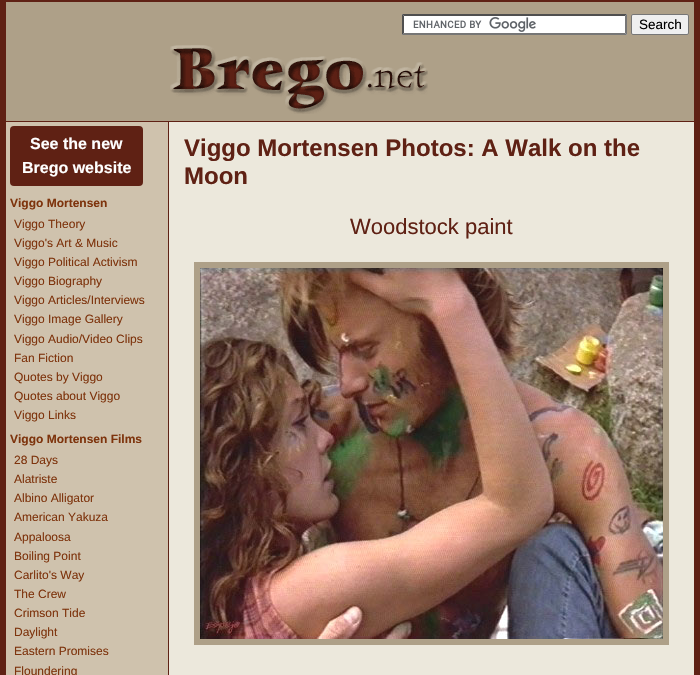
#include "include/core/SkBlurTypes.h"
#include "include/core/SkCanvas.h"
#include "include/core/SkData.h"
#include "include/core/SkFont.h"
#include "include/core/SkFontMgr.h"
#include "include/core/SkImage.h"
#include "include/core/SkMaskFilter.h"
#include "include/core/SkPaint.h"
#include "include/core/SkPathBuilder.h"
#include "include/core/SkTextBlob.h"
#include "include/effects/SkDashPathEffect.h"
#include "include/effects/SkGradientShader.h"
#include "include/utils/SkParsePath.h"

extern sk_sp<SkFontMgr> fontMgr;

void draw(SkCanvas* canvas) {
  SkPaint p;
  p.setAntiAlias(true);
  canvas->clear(SkColorSetRGB(236, 232, 220));
  p.setColor(SkColorSetRGB(95, 33, 20));
  canvas->drawRect(SkRect::MakeLTRB(0, 0, 700, 2), p);
  canvas->drawRect(SkRect::MakeLTRB(694, 0, 700, 675), p);
  canvas->drawRect(SkRect::MakeLTRB(0, 0, 6, 675), p);
  p.setColor(SkColorSetRGB(174, 160, 136));
  canvas->drawRect(SkRect::MakeLTRB(6, 2, 694, 121), p);
  p.setColor(SkColorSetRGB(95, 33, 20));
  canvas->drawRect(SkRect::MakeLTRB(6, 121, 694, 122), p);
  p.setColor(SK_ColorWHITE);
  canvas->drawRect(SkRect::MakeLTRB(402, 14, 627, 35), p);
  canvas->drawImageRect(SkImages::DeferredFromEncodedData(SkData::MakeFromFileName("images/1.png")), SkRect::MakeLTRB(413, 17, 536, 32), SkSamplingOptions());
  p.setColor(SkColorSetRGB(79, 79, 79));
  canvas->drawPath(SkPathBuilder().moveTo(402, 14).lineTo(627, 14).lineTo(625, 16).lineTo(404, 16).close().detach(), p);
  p.setColor(SkColorSetRGB(118, 118, 118));
  canvas->drawPath(SkPathBuilder().moveTo(627, 14).lineTo(627, 35).lineTo(625, 33).lineTo(625, 16).close().detach(), p);
  canvas->drawPath(SkPathBuilder().moveTo(627, 35).lineTo(402, 35).lineTo(404, 33).lineTo(625, 33).close().detach(), p);
  p.setColor(SkColorSetRGB(79, 79, 79));
  canvas->drawPath(SkPathBuilder().moveTo(402, 35).lineTo(402, 14).lineTo(404, 16).lineTo(404, 33).close().detach(), p);
  p.setColor(SkColorSetRGB(239, 239, 239));
  canvas->drawRoundRect(SkRect::MakeLTRB(631.5f, 14.5f, 688.5f, 34.5f), 1.5f, 1.5f, p);
  p.setStyle(SkPaint::kStroke_Style);
  p.setStrokeWidth(1);
  p.setColor(SkColorSetRGB(118, 118, 118));
  canvas->drawRoundRect(SkRect::MakeLTRB(631.5f, 14.5f, 688.5f, 34.5f), 1.5f, 1.5f, p);
  canvas->drawImageRect(SkImages::DeferredFromEncodedData(SkData::MakeFromFileName("images/2.png")), SkRect::MakeLTRB(170, 45, 428, 114), SkSamplingOptions());
  p.setStyle(SkPaint::kFill_Style);
  p.setColor(SkColorSetRGB(207, 194, 173));
  canvas->drawRect(SkRect::MakeLTRB(6, 122, 168, 675), p);
  p.setColor(SkColorSetRGB(95, 33, 20));
  canvas->drawRect(SkRect::MakeLTRB(168, 122, 169, 675), p);
  canvas->drawRoundRect(SkRect::MakeLTRB(10, 126, 143, 186), 4, 4, p);
  p.setStyle(SkPaint::kStroke_Style);
  p.setStrokeWidth(6);
  p.setColor(SkColorSetRGB(174, 160, 136));
  canvas->drawRect(SkRect::MakeLTRB(197, 265, 666, 642), p);
  canvas->drawImageRect(SkImages::DeferredFromEncodedData(SkData::MakeFromFileName("images/3.png")), SkRect::MakeLTRB(200, 268, 663, 639), SkSamplingOptions());
  SkFont font1(fontMgr->matchFamilyStyle("Liberation Sans", SkFontStyle::Normal()), 13.5f);
  font1.setSubpixel(true);
  p.setStyle(SkPaint::kFill_Style);
  p.setColor(SK_ColorBLACK);
  canvas->drawString("Search", 639, 29, font1, p);
  SkFont font2(fontMgr->matchFamilyStyle("Liberation Sans", SkFontStyle::Bold()), 16);
  font2.setSubpixel(true);
  p.setColor(SK_ColorWHITE);
  canvas->drawString("See the new", 30, 149, font2, p);
  canvas->drawString("Brego website", 22, 173, font2, p);
  SkFont font3(fontMgr->matchFamilyStyle("Liberation Sans", SkFontStyle::Bold()), 12);
  font3.setSubpixel(true);
  p.setColor(SkColorSetRGB(126, 52, 13));
  canvas->drawString("Viggo Mortensen", 10, 207, font3, p);
  SkFont font4(fontMgr->matchFamilyStyle("Liberation Sans", SkFontStyle::Normal()), 12);
  font4.setSubpixel(true);
  canvas->drawString("Viggo Theory", 14, 228, font4, p);
  canvas->drawString("Viggo's Art & Music", 14, 247, font4, p);
  canvas->drawString("Viggo Political Activism", 14, 266, font4, p);
  canvas->drawString("Viggo Biography", 14, 285, font4, p);
  canvas->drawString("Viggo Articles/Interviews", 14, 304, font4, p);
  canvas->drawString("Viggo Image Gallery", 14, 323, font4, p);
  canvas->drawString("Viggo Audio/Video Clips", 14, 343, font4, p);
  canvas->drawString("Fan Fiction", 14, 362, font4, p);
  canvas->drawString("Quotes by Viggo", 14, 381, font4, p);
  canvas->drawString("Quotes about Viggo", 14, 400, font4, p);
  canvas->drawString("Viggo Links", 14, 419, font4, p);
  canvas->drawString("Viggo Mortensen Films", 10, 443, font3, p);
  canvas->drawString("28 Days", 14, 464, font4, p);
  canvas->drawString("Alatriste", 14, 483, font4, p);
  canvas->drawString("Albino Alligator", 14, 502, font4, p);
  canvas->drawString("American Yakuza", 14, 521, font4, p);
  canvas->drawString("Appaloosa", 14, 541, font4, p);
  canvas->drawString("Boiling Point", 14, 560, font4, p);
  canvas->drawString("Carlito's Way", 14, 579, font4, p);
  canvas->drawString("The Crew", 14, 598, font4, p);
  canvas->drawString("Crimson Tide", 14, 617, font4, p);
  canvas->drawString("Daylight", 14, 636, font4, p);
  canvas->drawString("Eastern Promises", 14, 655, font4, p);
  canvas->drawString("Floundering", 14, 675, font4, p);
  SkFont font5(fontMgr->matchFamilyStyle("Liberation Sans", SkFontStyle::Bold()), 24);
  font5.setSubpixel(true);
  p.setColor(SkColorSetRGB(95, 33, 20));
  canvas->drawString("Viggo Mortensen Photos: A Walk on the", 184, 156, font5, p);
  canvas->drawString("Moon", 184, 184, font5, p);
  SkFont font6(fontMgr->matchFamilyStyle("Liberation Sans", SkFontStyle::Normal()), 22);
  font6.setSubpixel(true);
  canvas->drawString("Woodstock paint", 350, 234, font6, p);
}
